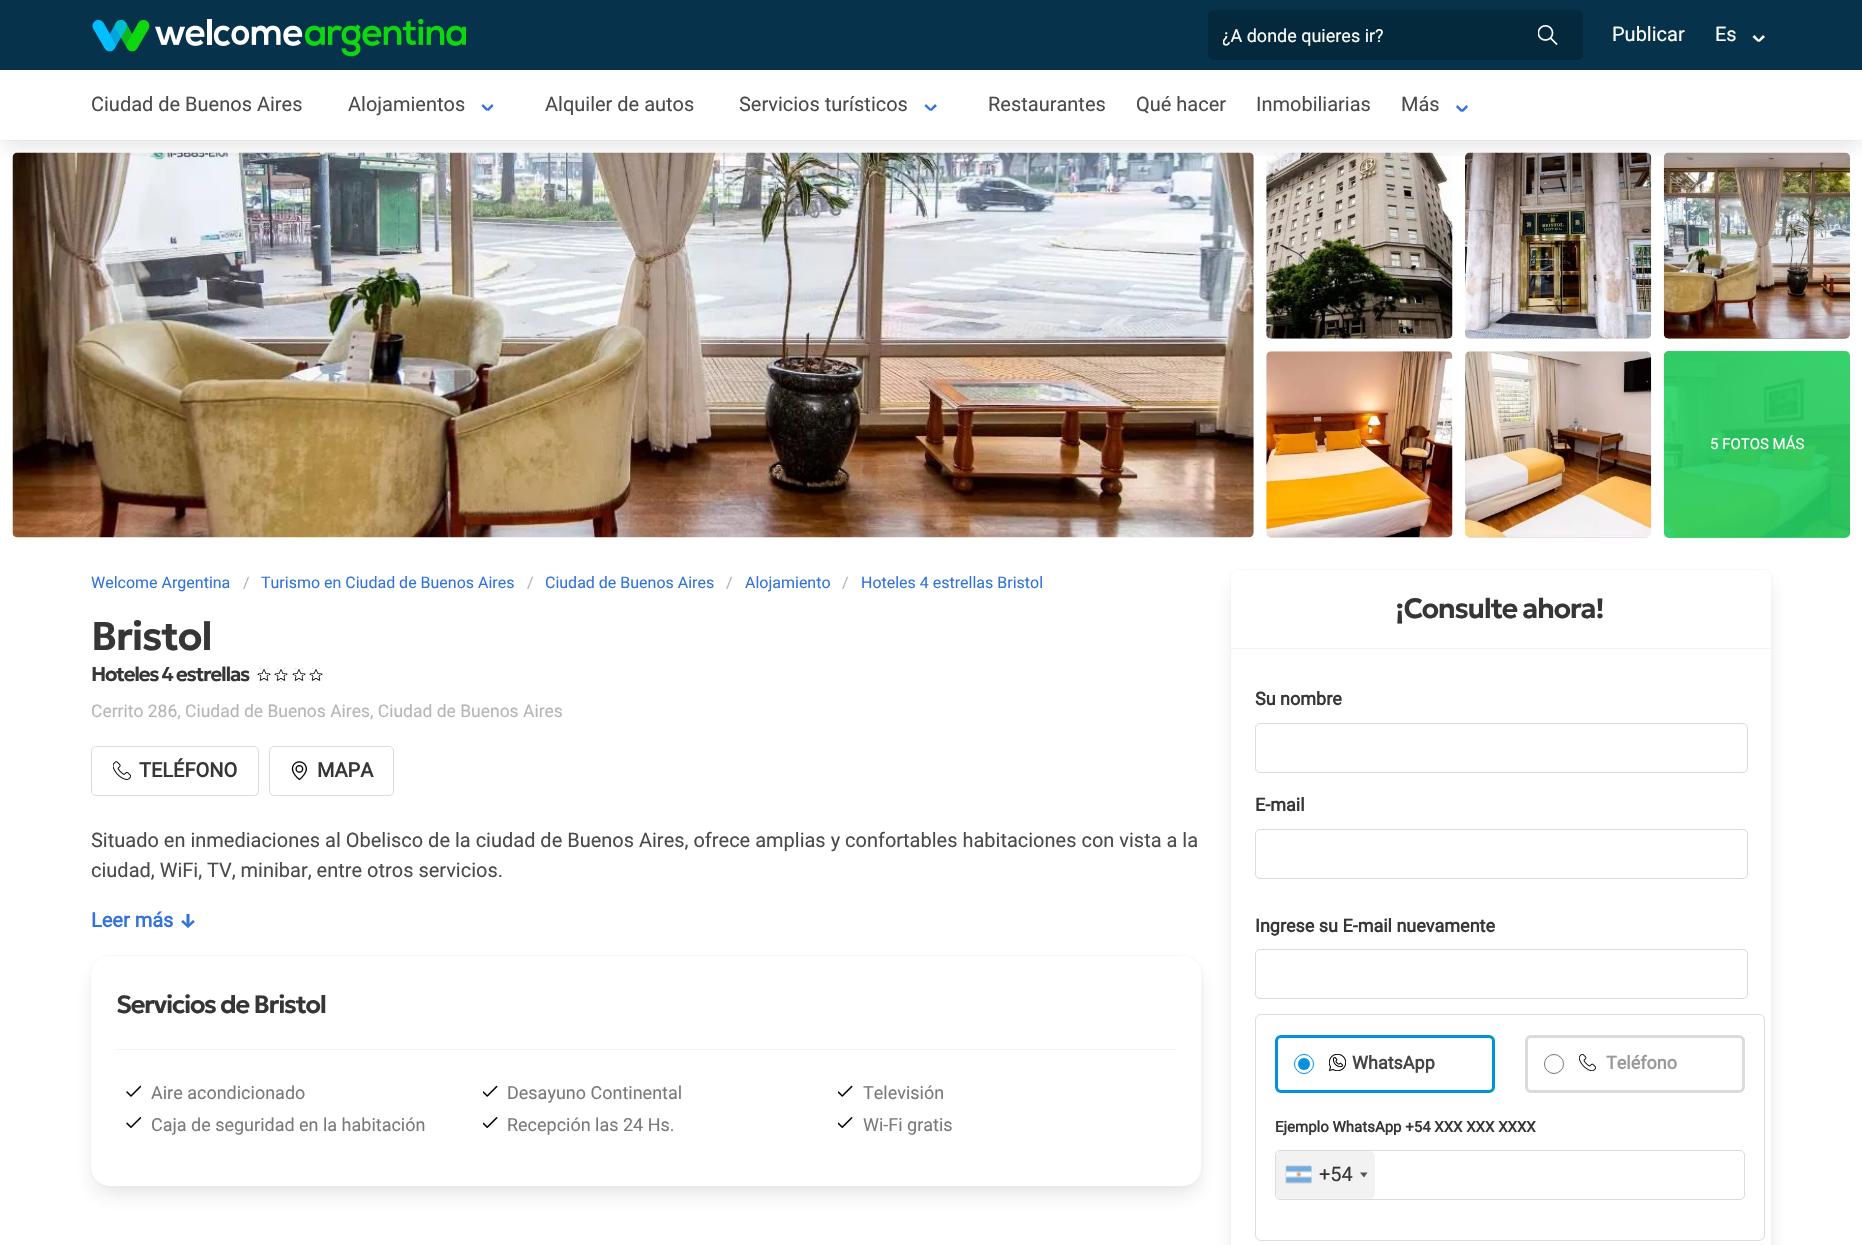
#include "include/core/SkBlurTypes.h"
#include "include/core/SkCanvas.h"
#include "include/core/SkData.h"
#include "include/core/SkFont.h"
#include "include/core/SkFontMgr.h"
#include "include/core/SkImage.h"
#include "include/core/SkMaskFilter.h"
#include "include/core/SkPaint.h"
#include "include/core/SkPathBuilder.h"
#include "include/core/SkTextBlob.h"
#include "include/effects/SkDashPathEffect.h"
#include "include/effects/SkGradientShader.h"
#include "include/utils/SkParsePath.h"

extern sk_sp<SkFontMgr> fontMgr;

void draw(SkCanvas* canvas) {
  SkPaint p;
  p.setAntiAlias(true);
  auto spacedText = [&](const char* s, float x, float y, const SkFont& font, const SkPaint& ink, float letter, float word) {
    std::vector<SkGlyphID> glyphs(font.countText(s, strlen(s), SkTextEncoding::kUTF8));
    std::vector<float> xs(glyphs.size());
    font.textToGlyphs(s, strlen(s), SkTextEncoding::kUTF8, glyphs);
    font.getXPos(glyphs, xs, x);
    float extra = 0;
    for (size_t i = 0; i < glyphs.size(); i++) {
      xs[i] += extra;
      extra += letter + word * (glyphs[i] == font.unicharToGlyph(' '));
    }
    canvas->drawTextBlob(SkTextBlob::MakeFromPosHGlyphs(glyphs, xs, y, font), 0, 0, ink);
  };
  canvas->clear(SK_ColorWHITE);
  p.setStyle(SkPaint::kStroke_Style);
  p.setStrokeWidth(1);
  p.setColor(SkColorSetRGB(250, 250, 250));
  canvas->drawRect(SkRect::MakeLTRB(-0.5f, 69.5f, 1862.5f, 140.5f), p);
  canvas->drawImageRect(SkImages::DeferredFromEncodedData(SkData::MakeFromFileName("images/3.png")), SkRect::MakeLTRB(12, 152, 1254, 538), SkSamplingOptions());
  canvas->drawImageRect(SkImages::DeferredFromEncodedData(SkData::MakeFromFileName("images/4.png")), SkRect::MakeLTRB(1266, 152, 1453, 339), SkSamplingOptions());
  canvas->drawImageRect(SkImages::DeferredFromEncodedData(SkData::MakeFromFileName("images/5.png")), SkRect::MakeLTRB(1465, 152, 1652, 339), SkSamplingOptions());
  canvas->drawImageRect(SkImages::DeferredFromEncodedData(SkData::MakeFromFileName("images/6.png")), SkRect::MakeLTRB(1663, 152, 1850, 339), SkSamplingOptions());
  canvas->save();
  canvas->clipRect(SkRect::MakeLTRB(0, 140, 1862, 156));
  p.setStyle(SkPaint::kFill_Style);
  p.setColor(SkColorSetARGB(26, 10, 10, 10));
  p.setMaskFilter(SkMaskFilter::MakeBlur(kNormal_SkBlurStyle, 10));
  canvas->drawRect(SkRect::MakeLTRB(3, 83, 1860, 148), p);
  p.setMaskFilter(nullptr);
  canvas->restore();
  p.setColor(SkColorSetRGB(6, 51, 75));
  canvas->drawRect(SkRect::MakeLTRB(0, 0, 1862, 70), p);
  canvas->drawImageRect(SkImages::DeferredFromEncodedData(SkData::MakeFromFileName("images/1.png")), SkRect::MakeLTRB(92, 18, 466, 57), SkSamplingOptions());
  p.setColor(SkColorSetRGB(5, 41, 60));
  canvas->drawRoundRect(SkRect::MakeLTRB(1208, 10, 1583, 60), 5, 5, p);
  canvas->drawImageRect(SkImages::DeferredFromEncodedData(SkData::MakeFromFileName("images/2.png")), SkRect::MakeLTRB(1538, 25, 1558, 45), SkSamplingOptions());
  p.setColor(SK_ColorWHITE);
  canvas->drawPath(SkPathBuilder().moveTo(1758, 40.5f).lineTo(1763, 35).lineTo(1765, 37).lineTo(1759.5f, 42).close().detach(), p);
  canvas->drawPath(SkPathBuilder().moveTo(1752.5f, 37).lineTo(1754.5f, 35).lineTo(1759.5f, 40.5f).lineTo(1758, 42).close().detach(), p);
  p.setColor(SkColorSetRGB(50, 115, 220));
  canvas->drawPath(SkPathBuilder().moveTo(486.5f, 109.5f).lineTo(492, 104).lineTo(493.5f, 106).lineTo(488.5f, 111).close().detach(), p);
  canvas->drawPath(SkPathBuilder().moveTo(481.5f, 106).lineTo(483, 104).lineTo(488.5f, 109.5f).lineTo(486.5f, 111).close().detach(), p);
  canvas->drawPath(SkPathBuilder().moveTo(930, 109.5f).lineTo(935, 104).lineTo(937, 106).lineTo(931.5f, 111).close().detach(), p);
  canvas->drawPath(SkPathBuilder().moveTo(924.5f, 106).lineTo(926, 104).lineTo(931.5f, 109.5f).lineTo(930, 111).close().detach(), p);
  canvas->drawPath(SkPathBuilder().moveTo(1461, 110.5f).lineTo(1466.5f, 105).lineTo(1468, 107).lineTo(1463, 112).close().detach(), p);
  canvas->drawPath(SkPathBuilder().moveTo(1456, 107).lineTo(1457.5f, 105).lineTo(1463, 110.5f).lineTo(1461, 112).close().detach(), p);
  canvas->drawImageRect(SkImages::DeferredFromEncodedData(SkData::MakeFromFileName("images/7.png")), SkRect::MakeLTRB(1266, 351, 1453, 538), SkSamplingOptions());
  canvas->drawImageRect(SkImages::DeferredFromEncodedData(SkData::MakeFromFileName("images/8.png")), SkRect::MakeLTRB(1465, 351, 1652, 538), SkSamplingOptions());
  canvas->drawImageRect(SkImages::DeferredFromEncodedData(SkData::MakeFromFileName("images/9.png")), SkRect::MakeLTRB(1663, 351, 1850, 538), SkSamplingOptions());
  p.setColor(SkColorSetARGB(230, 37, 211, 102));
  canvas->drawRoundRect(SkRect::MakeLTRB(1664, 351, 1850, 538), 5, 5, p);
  canvas->drawImageRect(SkImages::DeferredFromEncodedData(SkData::MakeFromFileName("images/10.png")), SkRect::MakeLTRB(257, 668, 323, 682), SkSamplingOptions());
  p.setStyle(SkPaint::kStroke_Style);
  p.setColor(SkColorSetRGB(219, 219, 219));
  canvas->drawRoundRect(SkRect::MakeLTRB(91.5f, 746.5f, 258.5f, 795.5f), 4.5f, 4.5f, p);
  canvas->drawImageRect(SkImages::DeferredFromEncodedData(SkData::MakeFromFileName("images/11.png")), SkRect::MakeLTRB(113, 761, 131, 780), SkSamplingOptions());
  canvas->drawRoundRect(SkRect::MakeLTRB(269.5f, 746.5f, 393.5f, 795.5f), 4.5f, 4.5f, p);
  canvas->drawImageRect(SkImages::DeferredFromEncodedData(SkData::MakeFromFileName("images/12.png")), SkRect::MakeLTRB(291, 761, 307, 780), SkSamplingOptions());
  p.setColor(SkColorSetRGB(250, 250, 250));
  canvas->drawRoundRect(SkRect::MakeLTRB(90.5f, 955.5f, 1202.5f, 1187.5f), 19.5f, 19.5f, p);
  p.setStyle(SkPaint::kFill_Style);
  p.setColor(SkColorSetARGB(26, 10, 10, 10));
  p.setMaskFilter(SkMaskFilter::MakeBlur(kNormal_SkBlurStyle, 10));
  canvas->drawRoundRect(SkRect::MakeLTRB(94, 969, 1199, 1194), 16, 16, p);
  p.setMaskFilter(nullptr);
  p.setColor(SK_ColorWHITE);
  canvas->drawRoundRect(SkRect::MakeLTRB(91, 956, 1201, 1186), 19, 19, p);
  p.setColor(SkColorSetRGB(245, 245, 245));
  canvas->drawRect(SkRect::MakeLTRB(116, 1049, 1176, 1050), p);
  canvas->drawImageRect(SkImages::DeferredFromEncodedData(SkData::MakeFromFileName("images/13.png")), SkRect::MakeLTRB(126, 1085, 141, 1097), SkSamplingOptions());
  canvas->drawImageRect(SkImages::DeferredFromEncodedData(SkData::MakeFromFileName("images/14.png")), SkRect::MakeLTRB(483, 1085, 498, 1097), SkSamplingOptions());
  canvas->drawImageRect(SkImages::DeferredFromEncodedData(SkData::MakeFromFileName("images/14.png")), SkRect::MakeLTRB(838, 1085, 853, 1097), SkSamplingOptions());
  canvas->drawImageRect(SkImages::DeferredFromEncodedData(SkData::MakeFromFileName("images/15.png")), SkRect::MakeLTRB(126, 1117, 141, 1128), SkSamplingOptions());
  canvas->drawImageRect(SkImages::DeferredFromEncodedData(SkData::MakeFromFileName("images/16.png")), SkRect::MakeLTRB(483, 1117, 498, 1128), SkSamplingOptions());
  canvas->drawImageRect(SkImages::DeferredFromEncodedData(SkData::MakeFromFileName("images/16.png")), SkRect::MakeLTRB(838, 1117, 853, 1128), SkSamplingOptions());
  p.setStyle(SkPaint::kStroke_Style);
  p.setColor(SkColorSetRGB(250, 250, 250));
  canvas->drawRoundRect(SkRect::MakeLTRB(1230.5f, 569.5f, 1772.5f, 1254.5f), 8.5f, 8.5f, p);
  p.setStyle(SkPaint::kFill_Style);
  p.setColor(SkColorSetARGB(26, 10, 10, 10));
  p.setMaskFilter(SkMaskFilter::MakeBlur(kNormal_SkBlurStyle, 10));
  canvas->drawRoundRect(SkRect::MakeLTRB(1234, 583, 1769, 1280), 5, 5, p);
  p.setMaskFilter(nullptr);
  p.setColor(SK_ColorWHITE);
  canvas->drawRoundRect(SkRect::MakeLTRB(1231, 570, 1771, 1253), 8, 8, p);
  p.setColor(SkColorSetRGB(242, 242, 242));
  canvas->drawRect(SkRect::MakeLTRB(1231, 648, 1771, 649), p);
  p.setStyle(SkPaint::kStroke_Style);
  p.setColor(SkColorSetRGB(219, 219, 219));
  canvas->drawRoundRect(SkRect::MakeLTRB(1255.5f, 723.5f, 1747.5f, 772.5f), 4.5f, 4.5f, p);
  canvas->drawRoundRect(SkRect::MakeLTRB(1255.5f, 829.5f, 1747.5f, 878.5f), 4.5f, 4.5f, p);
  canvas->drawRoundRect(SkRect::MakeLTRB(1255.5f, 949.5f, 1747.5f, 998.5f), 4.5f, 4.5f, p);
  p.setColor(SkColorSetRGB(221, 221, 221));
  canvas->drawRoundRect(SkRect::MakeLTRB(1255.5f, 1014.5f, 1764.5f, 1240.5f), 5.5f, 5.5f, p);
  p.setStrokeWidth(3);
  p.setColor(SkColorSetRGB(0, 146, 219));
  canvas->drawRoundRect(SkRect::MakeLTRB(1276.5f, 1036.5f, 1493.5f, 1091.5f), 4.5f, 4.5f, p);
  p.setStrokeWidth(1);
  canvas->drawCircle(1304, 1064, 9.5f, p);
  p.setStyle(SkPaint::kFill_Style);
  canvas->drawCircle(1304, 1064, 6, p);
  canvas->drawImageRect(SkImages::DeferredFromEncodedData(SkData::MakeFromFileName("images/17.png")), SkRect::MakeLTRB(1329, 1054, 1346, 1071), SkSamplingOptions());
  p.setStyle(SkPaint::kStroke_Style);
  p.setStrokeWidth(3);
  p.setColor(SkColorSetRGB(219, 219, 219));
  canvas->drawRoundRect(SkRect::MakeLTRB(1526.5f, 1036.5f, 1743.5f, 1091.5f), 4.5f, 4.5f, p);
  p.setStrokeWidth(1);
  p.setColor(SkColorSetRGB(118, 118, 118));
  canvas->drawCircle(1554, 1064, 9.5f, p);
  canvas->drawImageRect(SkImages::DeferredFromEncodedData(SkData::MakeFromFileName("images/18.png")), SkRect::MakeLTRB(1579, 1054, 1596, 1071), SkSamplingOptions());
  p.setColor(SkColorSetRGB(219, 219, 219));
  canvas->drawRoundRect(SkRect::MakeLTRB(1275.5f, 1150.5f, 1744.5f, 1199.5f), 4.5f, 4.5f, p);
  p.setStyle(SkPaint::kFill_Style);
  p.setColor(SkColorSetRGB(242, 242, 242));
  canvas->drawRoundRect(SkRect::MakeLTRB(1276, 1151, 1375, 1199), 6, 6, p);
  p.setColor(SkColorSetRGB(136, 136, 136));
  p.setMaskFilter(SkMaskFilter::MakeBlur(kNormal_SkBlurStyle, 0.5f));
  canvas->drawRect(SkRect::MakeLTRB(1286, 1166, 1311, 1183), p);
  p.setMaskFilter(nullptr);
  p.setColor(SkColorSetRGB(219, 219, 219));
  canvas->drawRect(SkRect::MakeLTRB(1286, 1166, 1311, 1183), p);
  canvas->drawImageRect(SkImages::DeferredFromEncodedData(SkData::MakeFromFileName("images/19.png")), SkRect::MakeLTRB(1286, 1166, 1312, 1183), SkSamplingOptions());
  p.setColor(SkColorSetRGB(85, 85, 85));
  canvas->drawPath(SkPathBuilder().moveTo(1360, 1172.5f).lineTo(1367.5f, 1172.5f).lineTo(1364, 1177.5f).close().detach(), p);
  canvas->save();
  canvas->clipRect(SkRect::MakeLTRB(1223, 26, 1531, 48));
  SkFont font1(fontMgr->matchFamilyStyle("Roboto", SkFontStyle::Normal()), 18);
  font1.setSubpixel(true);
  p.setColor(SK_ColorWHITE);
  canvas->drawString("¿A donde quieres ir?", 1222, 42, font1, p);
  canvas->restore();
  SkFont font2(fontMgr->matchFamilyStyle("Roboto", SkFontStyle::Normal()), 20);
  font2.setSubpixel(true);
  canvas->drawString("Publicar", 1612, 41, font2, p);
  canvas->drawString("Es", 1715, 41, font2, p);
  p.setColor(SkColorSetRGB(74, 74, 74));
  canvas->drawString("Ciudad de Buenos Aires", 91, 111, font2, p);
  canvas->drawString("Alojamientos", 348, 111, font2, p);
  canvas->drawString("Alquiler de autos", 545, 111, font2, p);
  canvas->drawString("Servicios turísticos", 739, 111, font2, p);
  canvas->drawString("Restaurantes", 988, 111, font2, p);
  canvas->drawString("Qué hacer", 1136, 111, font2, p);
  canvas->drawString("Inmobiliarias", 1256, 111, font2, p);
  canvas->drawString("Más", 1401, 111, font2, p);
  SkFont font3(fontMgr->matchFamilyStyle("Roboto", SkFontStyle::Normal()), 15);
  font3.setSubpixel(true);
  p.setColor(SK_ColorWHITE);
  canvas->drawString("5 FOTOS MÁS", 1710, 449, font3, p);
  SkFont font4(fontMgr->matchFamilyStyle("Roboto", SkFontStyle::Normal()), 16);
  font4.setSubpixel(true);
  p.setColor(SkColorSetRGB(50, 115, 220));
  canvas->drawString("Welcome Argentina", 91, 588, font4, p);
  p.setColor(SkColorSetRGB(181, 181, 181));
  canvas->drawString("/", 243, 588, font4, p);
  p.setColor(SkColorSetRGB(50, 115, 220));
  canvas->drawString("Turismo en Ciudad de Buenos Aires", 261, 588, font4, p);
  p.setColor(SkColorSetRGB(181, 181, 181));
  canvas->drawString("/", 527, 588, font4, p);
  p.setColor(SkColorSetRGB(50, 115, 220));
  canvas->drawString("Ciudad de Buenos Aires", 545, 588, font4, p);
  p.setColor(SkColorSetRGB(181, 181, 181));
  canvas->drawString("/", 726, 588, font4, p);
  p.setColor(SkColorSetRGB(50, 115, 220));
  canvas->drawString("Alojamiento", 745, 588, font4, p);
  p.setColor(SkColorSetRGB(181, 181, 181));
  canvas->drawString("/", 842, 588, font4, p);
  p.setColor(SkColorSetRGB(50, 115, 220));
  canvas->drawString("Hoteles 4 estrellas Bristol", 861, 588, font4, p);
  SkFont font5(fontMgr->matchFamilyStyle("Geologica", SkFontStyle(600, SkFontStyle::kNormal_Width, SkFontStyle::kUpright_Slant)), 40);
  font5.setSubpixel(true);
  p.setColor(SkColorSetRGB(54, 54, 54));
  spacedText("Bristol", 91, 650, font5, p, -1.25f, 0);
  SkFont font6(fontMgr->matchFamilyStyle("Geologica", SkFontStyle(600, SkFontStyle::kNormal_Width, SkFontStyle::kUpright_Slant)), 20);
  font6.setSubpixel(true);
  spacedText("Hoteles 4 estrellas", 91, 681, font6, p, -1.25f, 0);
  SkFont font7(fontMgr->matchFamilyStyle("Roboto", SkFontStyle::Normal()), 17.5f);
  font7.setSubpixel(true);
  p.setColor(SkColorSetRGB(181, 181, 181));
  canvas->drawString("Cerrito 286, Ciudad de Buenos Aires, Ciudad de Buenos Aires", 91, 717, font7, p);
  SkFont font8(fontMgr->matchFamilyStyle("Roboto", SkFontStyle::Bold()), 20);
  font8.setSubpixel(true);
  p.setColor(SkColorSetRGB(54, 54, 54));
  canvas->drawString("TELÉFONO", 139, 777, font8, p);
  canvas->drawString("MAPA", 317, 777, font8, p);
  p.setColor(SkColorSetRGB(74, 74, 74));
  canvas->drawString("Situado en inmediaciones al Obelisco de la ciudad de Buenos Aires, ofrece amplias y confortables habitaciones con vista a la", 91, 847, font2, p);
  canvas->drawString("ciudad, WiFi, TV, minibar, entre otros servicios.", 91, 877, font2, p);
  p.setColor(SkColorSetRGB(50, 115, 220));
  canvas->drawString("Leer más", 91, 927, font8, p);
  SkFont font9(fontMgr->matchFamilyStyle("Fira Sans", SkFontStyle::Bold()), 20);
  font9.setSubpixel(true);
  canvas->drawString("↓", 179, 927, font9, p);
  SkFont font10(fontMgr->matchFamilyStyle("Geologica", SkFontStyle(600, SkFontStyle::kNormal_Width, SkFontStyle::kUpright_Slant)), 25);
  font10.setSubpixel(true);
  p.setColor(SkColorSetRGB(54, 54, 54));
  spacedText("Servicios de Bristol", 116, 1013, font10, p, -1.25f, 0);
  p.setColor(SkColorSetRGB(122, 122, 122));
  canvas->drawString("Aire acondicionado", 151, 1099, font1, p);
  canvas->drawString("Desayuno Continental", 507, 1099, font1, p);
  canvas->drawString("Televisión", 863, 1099, font1, p);
  canvas->drawString("Caja de seguridad en la habitación", 151, 1131, font1, p);
  canvas->drawString("Recepción las 24 Hs.", 507, 1131, font1, p);
  canvas->drawString("Wi-Fi gratis", 863, 1131, font1, p);
  SkFont font11(fontMgr->matchFamilyStyle("Geologica", SkFontStyle(600, SkFontStyle::kNormal_Width, SkFontStyle::kUpright_Slant)), 28);
  font11.setSubpixel(true);
  p.setColor(SkColorSetRGB(54, 54, 54));
  spacedText("¡Consulte ahora!", 1395, 618, font11, p, -1.25f, 0);
  SkFont font12(fontMgr->matchFamilyStyle("Roboto", SkFontStyle::Bold()), 18);
  font12.setSubpixel(true);
  canvas->drawString("Su nombre", 1255, 705, font12, p);
  canvas->drawString("E-mail", 1255, 811, font12, p);
  canvas->drawString("Ingrese su E-mail nuevamente", 1255, 932, font12, p);
  p.setColor(SkColorSetRGB(68, 68, 68));
  canvas->drawString("WhatsApp", 1352, 1069, font12, p);
  p.setColor(SkColorSetRGB(153, 153, 153));
  canvas->drawString("Teléfono", 1606, 1069, font12, p);
  SkFont font13(fontMgr->matchFamilyStyle("Roboto", SkFontStyle::Bold()), 15);
  font13.setSubpixel(true);
  p.setColor(SkColorSetRGB(54, 54, 54));
  canvas->drawString("Ejemplo WhatsApp +54 XXX XXX XXXX", 1275, 1132, font13, p);
  canvas->drawString("+54", 1319, 1181, font2, p);
}
